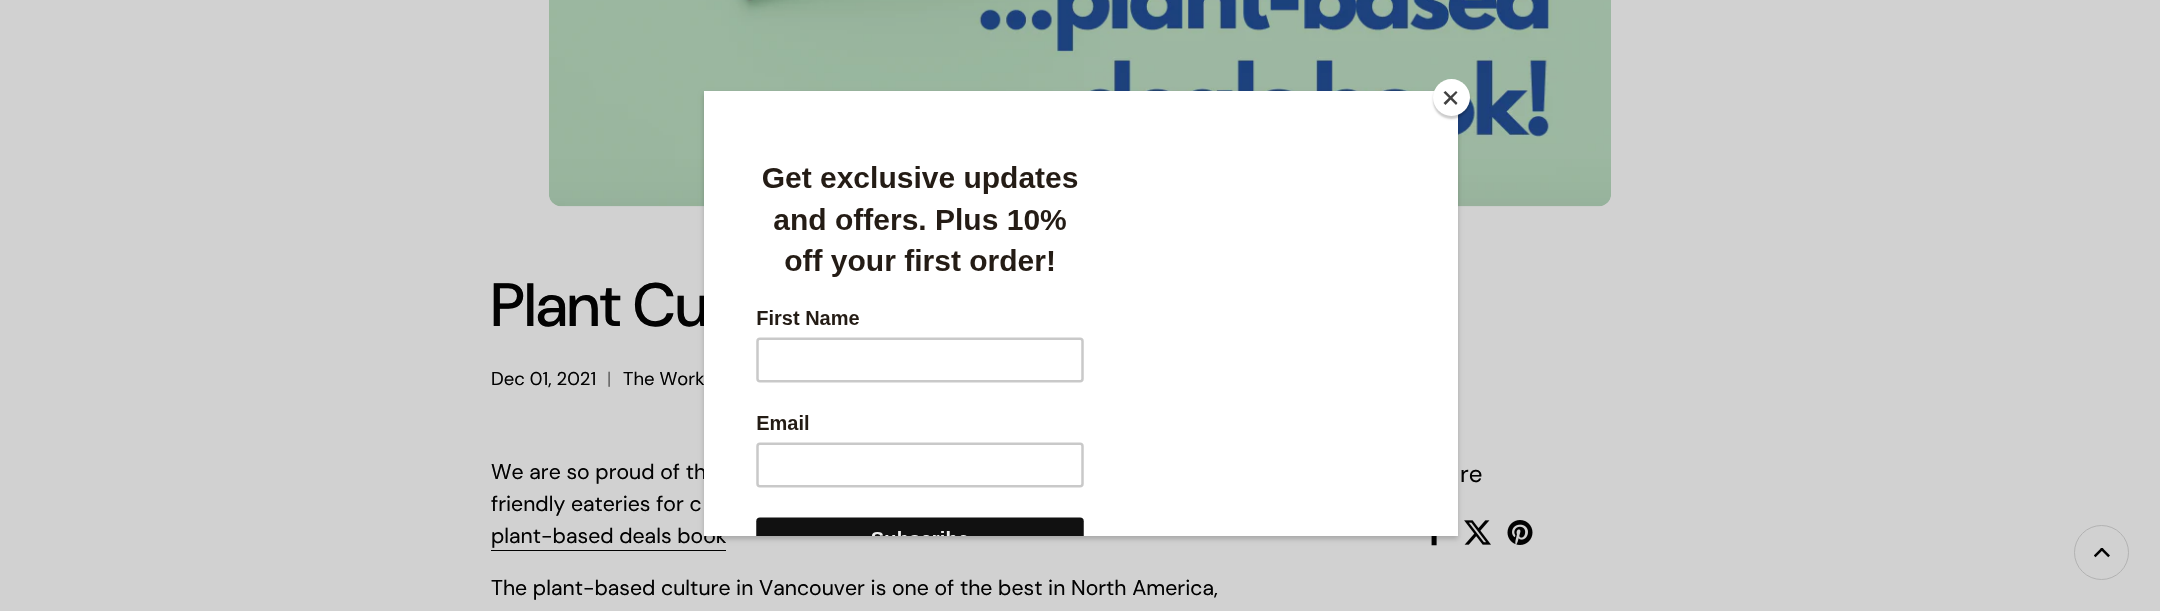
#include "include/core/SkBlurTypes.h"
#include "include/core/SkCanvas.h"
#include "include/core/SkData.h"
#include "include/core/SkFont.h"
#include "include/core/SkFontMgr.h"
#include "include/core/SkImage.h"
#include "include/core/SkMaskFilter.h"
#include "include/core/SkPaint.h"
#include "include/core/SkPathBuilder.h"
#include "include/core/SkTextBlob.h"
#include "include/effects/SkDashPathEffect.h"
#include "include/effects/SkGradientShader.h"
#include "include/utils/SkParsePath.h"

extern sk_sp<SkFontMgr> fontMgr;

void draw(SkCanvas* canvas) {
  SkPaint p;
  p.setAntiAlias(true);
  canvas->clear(SkColorSetRGB(209, 209, 209));
  canvas->drawImageRect(SkImages::DeferredFromEncodedData(SkData::MakeFromFileName("images/2.png")), SkRect::MakeLTRB(549, 0, 1611, 207), SkSamplingOptions());
  canvas->drawImageRect(SkImages::DeferredFromEncodedData(SkData::MakeFromFileName("images/3.png")), SkRect::MakeLTRB(1431, 536, 1437, 546), SkSamplingOptions());
  canvas->drawImageRect(SkImages::DeferredFromEncodedData(SkData::MakeFromFileName("images/4.png")), SkRect::MakeLTRB(1464, 520, 1491, 545), SkSamplingOptions());
  p.setColor(SkColorSetARGB(51, 0, 0, 0));
  p.setMaskFilter(SkMaskFilter::MakeBlur(kNormal_SkBlurStyle, 2.5f));
  canvas->drawRect(SkRect::MakeLTRB(704, 94, 1458, 539), p);
  p.setMaskFilter(nullptr);
  p.setColor(SkColorSetRGB(2, 2, 2));
  canvas->drawRect(SkRect::MakeLTRB(491, 550, 726, 551), p);
  canvas->drawImageRect(SkImages::DeferredFromEncodedData(SkData::MakeFromFileName("images/5.png")), SkRect::MakeLTRB(1507, 520, 1533, 545), SkSamplingOptions());
  p.setStyle(SkPaint::kStroke_Style);
  p.setStrokeWidth(1);
  p.setColor(SkColorSetRGB(178, 178, 178));
  canvas->drawCircle(2101.5f, 552.5f, 27, p);
  canvas->drawImageRect(SkImages::DeferredFromEncodedData(SkData::MakeFromFileName("images/6.png")), SkRect::MakeLTRB(2094, 548, 2110, 558), SkSamplingOptions());
  SkFont font1(fontMgr->matchFamilyStyle("DM Sans", SkFontStyle(500, SkFontStyle::kNormal_Width, SkFontStyle::kUpright_Slant)), 61);
  font1.setSubpixel(true);
  p.setStyle(SkPaint::kFill_Style);
  p.setColor(SkColorSetRGB(2, 2, 2));
  canvas->drawString("Plant Cu", 491, 326, font1, p);
  SkFont font2(fontMgr->matchFamilyStyle("DM Sans", SkFontStyle::Normal()), 18.5f);
  font2.setSubpixel(true);
  canvas->drawString("Dec 01, 2021", 491, 385, font2, p);
  p.setColor(SkColorSetRGB(106, 106, 106));
  canvas->drawString("|", 607, 385, font2, p);
  p.setColor(SkColorSetRGB(2, 2, 2));
  canvas->drawString("The Work", 623, 385, font2, p);
  SkFont font3(fontMgr->matchFamilyStyle("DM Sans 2", SkFontStyle::Normal()), 21.25f);
  font3.setSubpixel(true);
  canvas->drawString("We are so proud of th", 491, 479, font3, p);
  canvas->drawString("friendly eateries for c", 491, 511, font3, p);
  canvas->drawString("plant-based deals book", 491, 543, font3, p);
  canvas->drawImageRect(SkImages::DeferredFromEncodedData(SkData::MakeFromFileName("images/1.png")), SkRect::MakeLTRB(704, 91, 1458, 536), SkSamplingOptions());
  p.setColor(SkColorSetARGB(51, 0, 0, 0));
  p.setMaskFilter(SkMaskFilter::MakeBlur(kNormal_SkBlurStyle, 1));
  canvas->drawRoundRect(SkRect::MakeLTRB(1433, 81, 1470, 119), 18.5f, 18.5f, p);
  p.setMaskFilter(nullptr);
  p.setColor(SK_ColorWHITE);
  canvas->drawCircle(1451.5f, 97.5f, 18.5f, p);
  p.setColor(SkColorSetRGB(65, 65, 65));
  canvas->drawPath(SkPathBuilder().moveTo(1456, 91).lineTo(1457.5f, 92.5f).lineTo(1445.5f, 105).lineTo(1443.5f, 103).close().detach(), p);
  canvas->drawPath(SkPathBuilder().moveTo(1443.5f, 92.5f).lineTo(1445.5f, 91).lineTo(1457.5f, 103).lineTo(1456, 105).close().detach(), p);
  p.setColor(SkColorSetRGB(2, 2, 2));
  canvas->drawString("The plant-based culture in Vancouver is one of the best in North America,", 491, 595, font3, p);
  SkFont font4(fontMgr->matchFamilyStyle("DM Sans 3", SkFontStyle::Normal()), 24);
  font4.setSubpixel(true);
  canvas->drawString("re", 1460, 482, font4, p);
}
